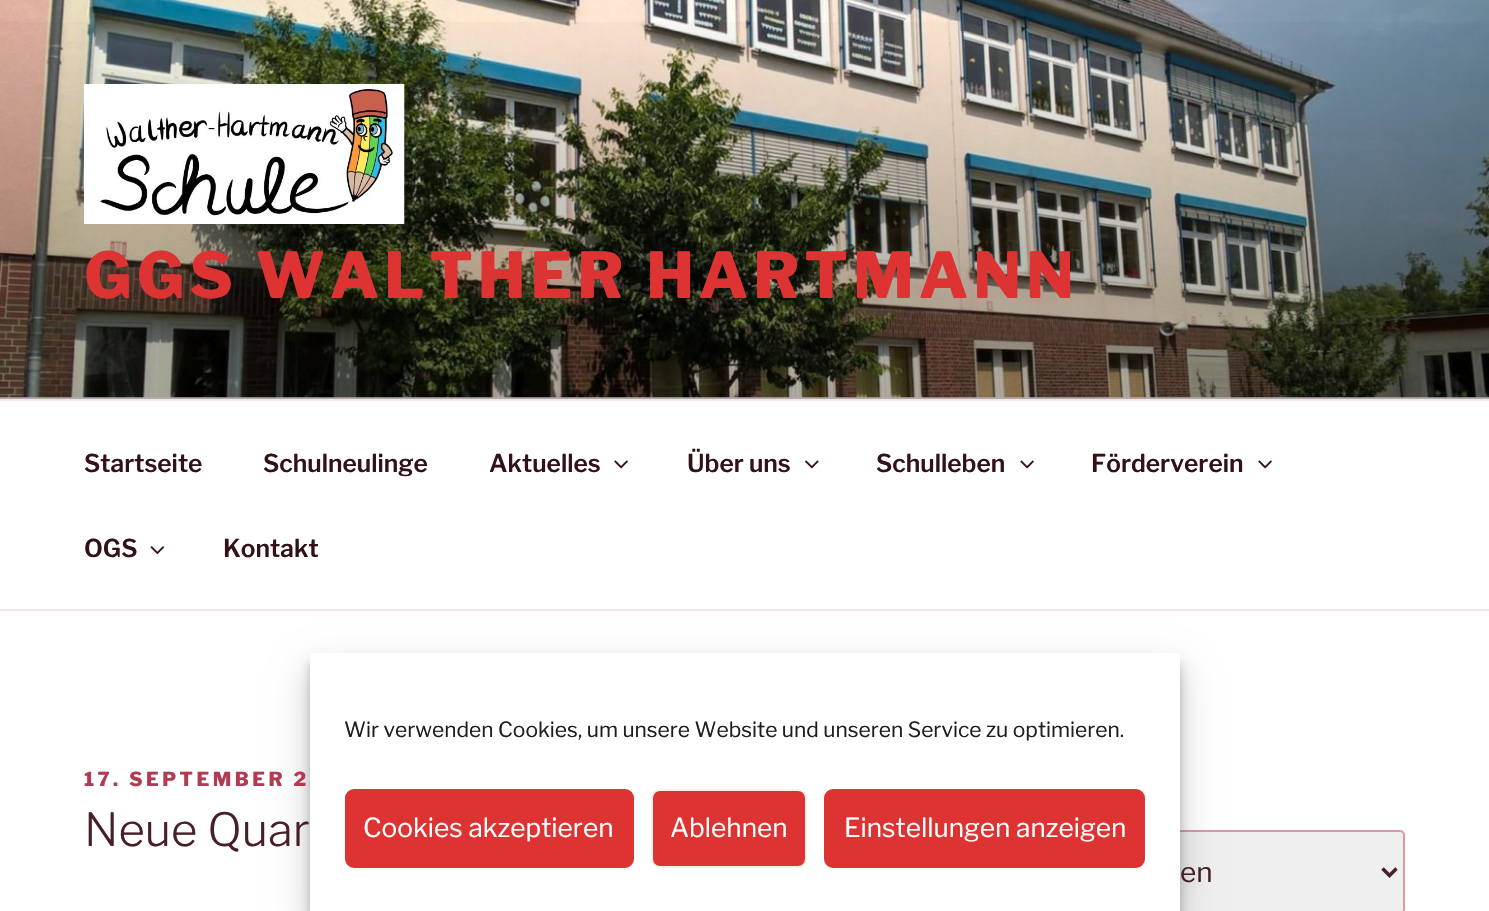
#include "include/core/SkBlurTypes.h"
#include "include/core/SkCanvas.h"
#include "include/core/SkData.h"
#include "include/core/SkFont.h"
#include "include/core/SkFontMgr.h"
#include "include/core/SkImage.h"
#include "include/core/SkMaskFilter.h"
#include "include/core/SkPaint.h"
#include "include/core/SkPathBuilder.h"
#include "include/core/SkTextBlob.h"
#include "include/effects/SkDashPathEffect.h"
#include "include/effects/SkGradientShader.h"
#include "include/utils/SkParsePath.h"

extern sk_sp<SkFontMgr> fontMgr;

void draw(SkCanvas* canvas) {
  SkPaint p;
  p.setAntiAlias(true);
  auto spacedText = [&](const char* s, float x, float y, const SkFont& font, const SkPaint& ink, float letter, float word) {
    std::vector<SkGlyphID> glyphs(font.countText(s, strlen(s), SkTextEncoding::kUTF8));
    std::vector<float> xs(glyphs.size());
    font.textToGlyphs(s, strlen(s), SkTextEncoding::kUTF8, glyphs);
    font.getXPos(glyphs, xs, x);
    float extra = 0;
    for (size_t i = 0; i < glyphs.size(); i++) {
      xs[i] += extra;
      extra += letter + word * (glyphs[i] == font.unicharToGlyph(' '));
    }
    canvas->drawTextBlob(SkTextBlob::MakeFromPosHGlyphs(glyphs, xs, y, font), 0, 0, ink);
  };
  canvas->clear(SK_ColorWHITE);
  p.setColor(SkColorSetRGB(252, 247, 248));
  canvas->drawRect(SkRect::MakeLTRB(0, 397, 1489, 399), p);
  canvas->drawImageRect(SkImages::DeferredFromEncodedData(SkData::MakeFromFileName("images/1.png")), SkRect::MakeLTRB(0, 0, 1489, 398), SkSamplingOptions());
  {
    const SkColor colors[] = {SkColorSetARGB(0, 0, 0, 0), SkColorSetARGB(77, 0, 0, 0), SkColorSetARGB(77, 0, 0, 0)};
    const float stops[] = {0, 0.75f, 1};
    const SkPoint ends[] = {{745, 0}, {745, 399}};
    p.setShader(SkGradientShader::MakeLinear(ends, colors, stops, 3, SkTileMode::kClamp));
    p.setAlpha(255);
  }
  canvas->drawRect(SkRect::MakeLTRB(0, 22, 1489, 399), p);
  canvas->drawImageRect(SkImages::DeferredFromEncodedData(SkData::MakeFromFileName("images/2.png")), SkRect::MakeLTRB(84, 84, 405, 224), SkSamplingOptions());
  p.setShader(nullptr);
  p.setColor(SkColorSetRGB(246, 228, 232));
  canvas->drawRect(SkRect::MakeLTRB(0, 399, 1489, 401), p);
  canvas->drawRect(SkRect::MakeLTRB(0, 609, 1489, 611), p);
  canvas->drawImageRect(SkImages::DeferredFromEncodedData(SkData::MakeFromFileName("images/3.png")), SkRect::MakeLTRB(614, 460, 628, 469), SkSamplingOptions());
  canvas->drawImageRect(SkImages::DeferredFromEncodedData(SkData::MakeFromFileName("images/4.png")), SkRect::MakeLTRB(805, 460, 819, 469), SkSamplingOptions());
  canvas->drawImageRect(SkImages::DeferredFromEncodedData(SkData::MakeFromFileName("images/3.png")), SkRect::MakeLTRB(1020, 460, 1034, 469), SkSamplingOptions());
  canvas->drawImageRect(SkImages::DeferredFromEncodedData(SkData::MakeFromFileName("images/3.png")), SkRect::MakeLTRB(1258, 460, 1272, 469), SkSamplingOptions());
  canvas->drawImageRect(SkImages::DeferredFromEncodedData(SkData::MakeFromFileName("images/5.png")), SkRect::MakeLTRB(150, 546, 165, 555), SkSamplingOptions());
  p.setColor(SkColorSetRGB(239, 239, 239));
  canvas->drawRoundRect(SkRect::MakeLTRB(930, 831, 1404, 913), 4, 4, p);
  p.setStyle(SkPaint::kStroke_Style);
  p.setStrokeWidth(2);
  p.setColor(SkColorSetRGB(221, 152, 165));
  canvas->drawRoundRect(SkRect::MakeLTRB(930, 831, 1404, 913), 4, 4, p);
  p.setStrokeWidth(3.5f);
  p.setColor(SkColorSetRGB(71, 31, 39));
  canvas->drawPath(SkPathBuilder().moveTo(1382.5f, 868.5f).lineTo(1389.5f, 875.5f).lineTo(1396.5f, 868.5f).detach(), p);
  p.setStyle(SkPaint::kFill_Style);
  p.setColor(SkColorSetARGB(59, 0, 0, 0));
  p.setMaskFilter(SkMaskFilter::MakeBlur(kNormal_SkBlurStyle, 5));
  canvas->drawRect(SkRect::MakeLTRB(310, 663, 1180, 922), p);
  p.setMaskFilter(nullptr);
  p.setColor(SkColorSetARGB(48, 0, 0, 0));
  p.setMaskFilter(SkMaskFilter::MakeBlur(kNormal_SkBlurStyle, 17.5f));
  canvas->drawRect(SkRect::MakeLTRB(310, 670, 1180, 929), p);
  p.setMaskFilter(nullptr);
  p.setColor(SK_ColorWHITE);
  canvas->drawRect(SkRect::MakeLTRB(310, 653, 1180, 911), p);
  p.setColor(SkColorSetRGB(221, 51, 51));
  canvas->drawRoundRect(SkRect::MakeLTRB(346, 790, 633, 867), 8, 8, p);
  p.setStyle(SkPaint::kStroke_Style);
  p.setStrokeWidth(2);
  canvas->drawRoundRect(SkRect::MakeLTRB(346, 790, 633, 867), 8, 8, p);
  p.setStyle(SkPaint::kFill_Style);
  canvas->drawRoundRect(SkRect::MakeLTRB(652, 790, 806, 867), 8, 8, p);
  p.setStyle(SkPaint::kStroke_Style);
  p.setColor(SkColorSetRGB(241, 241, 241));
  canvas->drawRoundRect(SkRect::MakeLTRB(652, 790, 806, 867), 8, 8, p);
  p.setStyle(SkPaint::kFill_Style);
  p.setColor(SkColorSetRGB(221, 51, 51));
  canvas->drawRoundRect(SkRect::MakeLTRB(825, 790, 1144, 867), 8, 8, p);
  p.setStyle(SkPaint::kStroke_Style);
  canvas->drawRoundRect(SkRect::MakeLTRB(825, 790, 1144, 867), 8, 8, p);
  SkFont font1(fontMgr->matchFamilyStyle("Libre Franklin", SkFontStyle(100, SkFontStyle::kNormal_Width, SkFontStyle::kUpright_Slant)), 63);
  font1.setSubpixel(true);
  p.setStyle(SkPaint::kFill_Style);
  spacedText("GGS WALTHER HARTMANN", 84, 298, font1, p, 5, 0);
  SkFont font2(fontMgr->matchFamilyStyle("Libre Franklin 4", SkFontStyle(100, SkFontStyle::kNormal_Width, SkFontStyle::kUpright_Slant)), 24.5f);
  font2.setSubpixel(true);
  p.setColor(SkColorSetRGB(50, 17, 23));
  canvas->drawString("Startseite", 84, 472, font2, p);
  canvas->drawString("Schulneulinge", 263, 472, font2, p);
  canvas->drawString("Aktuelles", 489, 472, font2, p);
  canvas->drawString("Über uns", 687, 472, font2, p);
  canvas->drawString("Schulleben", 876, 472, font2, p);
  canvas->drawString("Förderverein", 1091, 472, font2, p);
  canvas->drawString("OGS", 84, 557, font2, p);
  canvas->drawString("Kontakt", 223, 557, font2, p);
  SkFont font3(fontMgr->matchFamilyStyle("Libre Franklin", SkFontStyle(100, SkFontStyle::kNormal_Width, SkFontStyle::kUpright_Slant)), 19.25f);
  font3.setSubpixel(true);
  p.setColor(SkColorSetRGB(176, 59, 82));
  spacedText("17. SEPTEMBER 2", 84, 786, font3, p, 3.5f, 0);
  SkFont font4(fontMgr->matchFamilyStyle("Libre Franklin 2", SkFontStyle(100, SkFontStyle::kNormal_Width, SkFontStyle::kUpright_Slant)), 45.5f);
  font4.setSubpixel(true);
  p.setColor(SkColorSetRGB(71, 31, 39));
  canvas->drawString("Neue Quar", 84, 846, font4, p);
  SkFont font5(fontMgr->matchFamilyStyle("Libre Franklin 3", SkFontStyle(100, SkFontStyle::kNormal_Width, SkFontStyle::kUpright_Slant)), 28);
  font5.setSubpixel(true);
  canvas->drawString("en", 1180, 882, font5, p);
  SkFont font6(fontMgr->matchFamilyStyle("Libre Franklin 3", SkFontStyle(100, SkFontStyle::kNormal_Width, SkFontStyle::kUpright_Slant)), 21);
  font6.setSubpixel(true);
  p.setColor(SkColorSetRGB(30, 30, 30));
  canvas->drawString("Wir verwenden Cookies, um unsere Website und unseren Service zu optimieren.", 344, 737, font6, p);
  SkFont font7(fontMgr->matchFamilyStyle("Libre Franklin 3", SkFontStyle(100, SkFontStyle::kNormal_Width, SkFontStyle::kUpright_Slant)), 26.25f);
  font7.setSubpixel(true);
  p.setColor(SK_ColorWHITE);
  canvas->drawString("Cookies akzeptieren", 363, 837, font7, p);
  canvas->drawString("Ablehnen", 670, 837, font7, p);
  canvas->drawString("Einstellungen anzeigen", 844, 837, font7, p);
}
